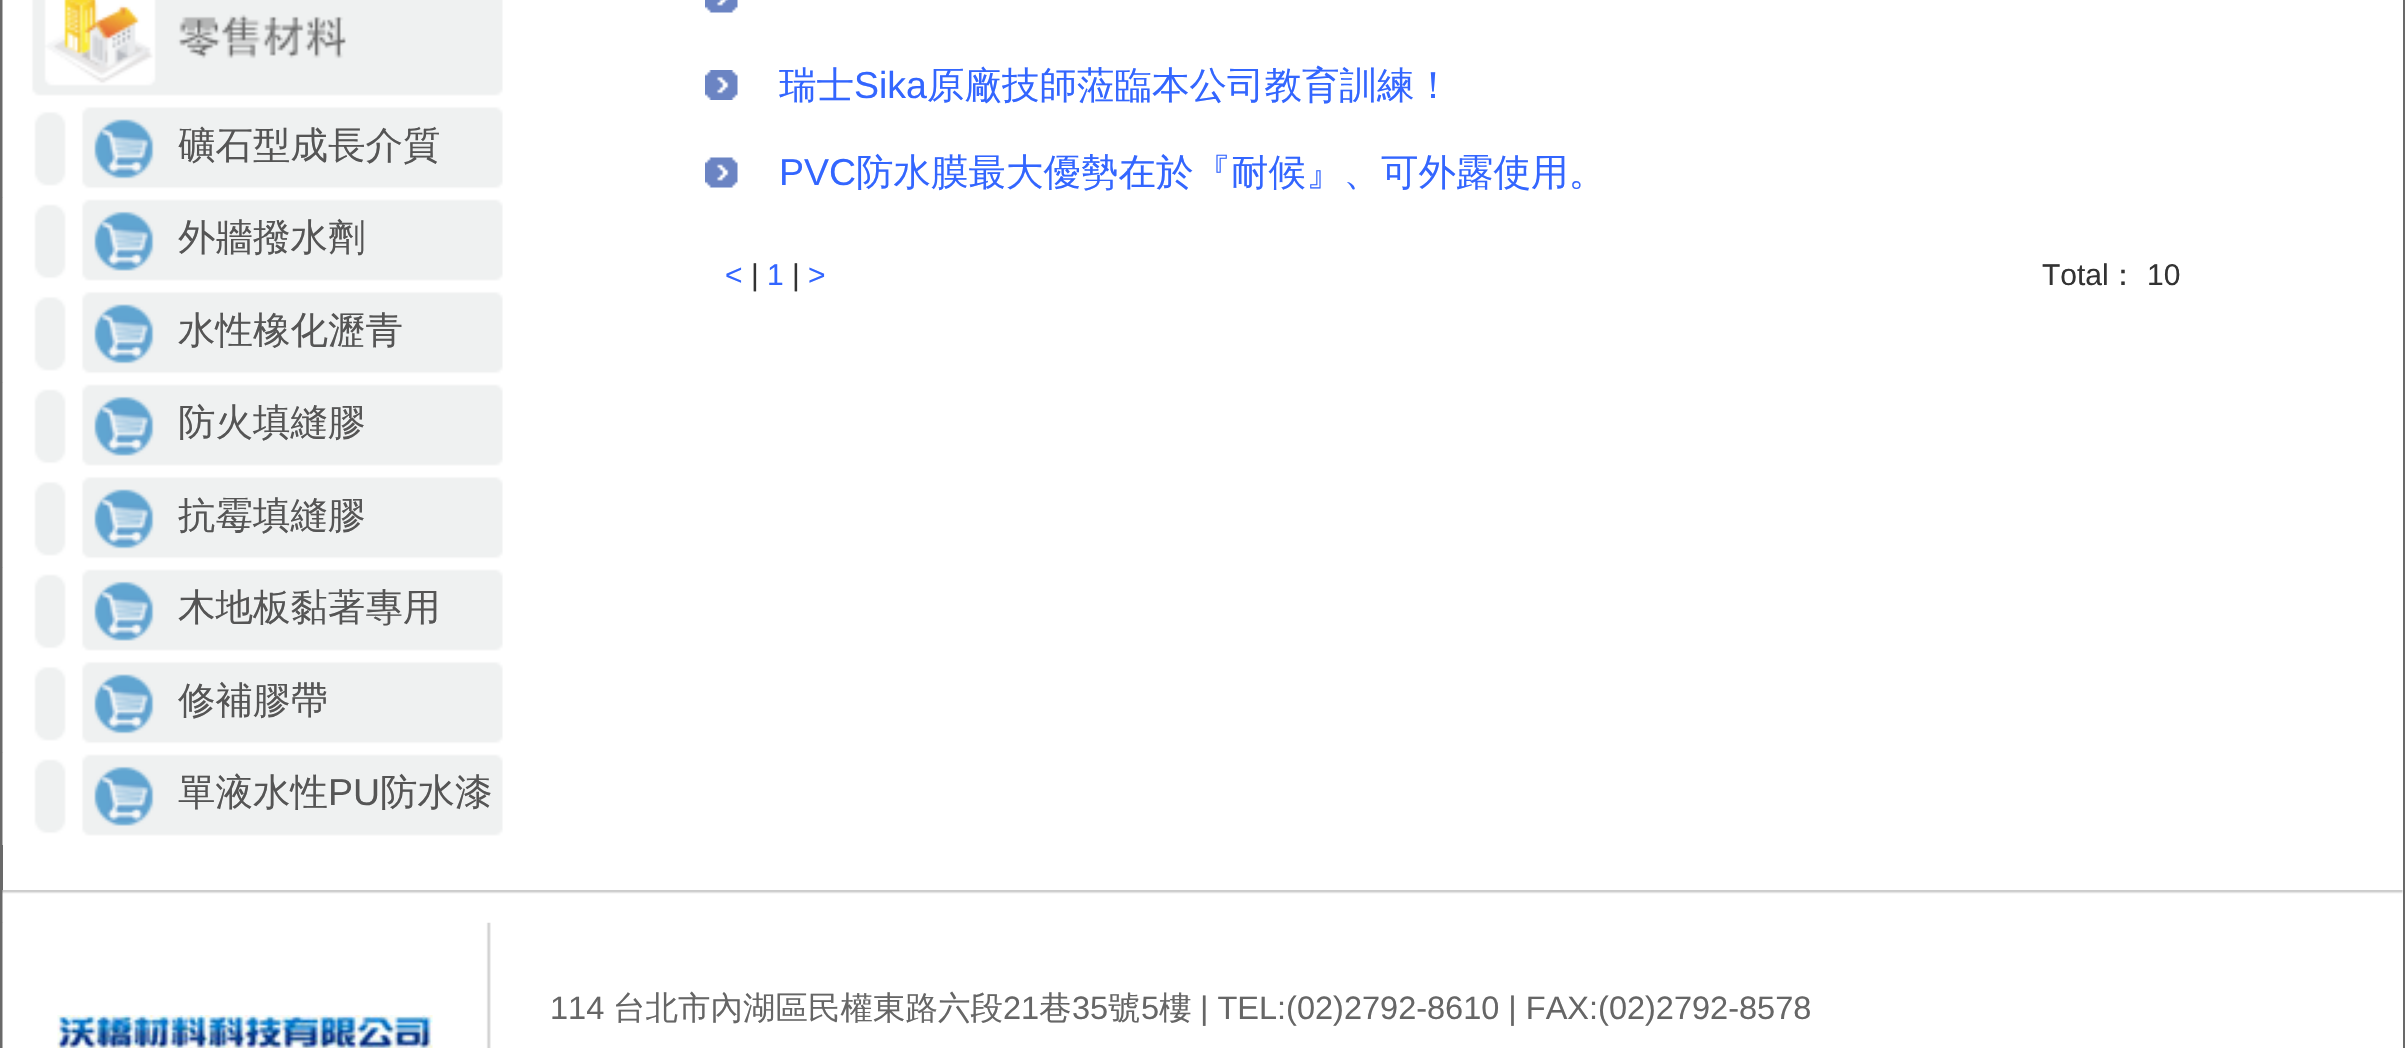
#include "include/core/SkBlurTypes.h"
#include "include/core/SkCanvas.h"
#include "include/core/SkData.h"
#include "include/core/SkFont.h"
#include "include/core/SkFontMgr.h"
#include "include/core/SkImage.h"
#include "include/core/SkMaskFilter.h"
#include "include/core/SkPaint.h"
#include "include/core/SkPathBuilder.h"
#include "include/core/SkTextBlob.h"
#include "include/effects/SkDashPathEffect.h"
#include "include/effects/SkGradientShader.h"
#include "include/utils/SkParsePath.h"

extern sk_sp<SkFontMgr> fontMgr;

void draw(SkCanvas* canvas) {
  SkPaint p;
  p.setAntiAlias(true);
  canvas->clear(SkColorSetRGB(105, 105, 105));
  p.setColor(SK_ColorWHITE);
  canvas->drawRect(SkRect::MakeLTRB(3, 0, 2403, 1048), p);
  canvas->drawImageRect(SkImages::DeferredFromEncodedData(SkData::MakeFromFileName("images/1.png")), SkRect::MakeLTRB(2, 0, 503, 105), SkSamplingOptions());
  canvas->drawImageRect(SkImages::DeferredFromEncodedData(SkData::MakeFromFileName("images/2.png")), SkRect::MakeLTRB(2, 105, 503, 198), SkSamplingOptions());
  canvas->drawImageRect(SkImages::DeferredFromEncodedData(SkData::MakeFromFileName("images/3.png")), SkRect::MakeLTRB(2, 197, 503, 290), SkSamplingOptions());
  canvas->drawImageRect(SkImages::DeferredFromEncodedData(SkData::MakeFromFileName("images/2.png")), SkRect::MakeLTRB(2, 290, 503, 383), SkSamplingOptions());
  canvas->drawImageRect(SkImages::DeferredFromEncodedData(SkData::MakeFromFileName("images/3.png")), SkRect::MakeLTRB(2, 382, 503, 475), SkSamplingOptions());
  canvas->drawImageRect(SkImages::DeferredFromEncodedData(SkData::MakeFromFileName("images/2.png")), SkRect::MakeLTRB(2, 475, 503, 568), SkSamplingOptions());
  canvas->drawImageRect(SkImages::DeferredFromEncodedData(SkData::MakeFromFileName("images/4.png")), SkRect::MakeLTRB(2, 567, 503, 660), SkSamplingOptions());
  canvas->drawImageRect(SkImages::DeferredFromEncodedData(SkData::MakeFromFileName("images/2.png")), SkRect::MakeLTRB(2, 660, 503, 753), SkSamplingOptions());
  canvas->drawImageRect(SkImages::DeferredFromEncodedData(SkData::MakeFromFileName("images/3.png")), SkRect::MakeLTRB(2, 752, 503, 845), SkSamplingOptions());
  canvas->drawImageRect(SkImages::DeferredFromEncodedData(SkData::MakeFromFileName("images/5.png")), SkRect::MakeLTRB(705, 0, 738, 13), SkSamplingOptions());
  canvas->drawImageRect(SkImages::DeferredFromEncodedData(SkData::MakeFromFileName("images/6.png")), SkRect::MakeLTRB(705, 70, 738, 100), SkSamplingOptions());
  canvas->drawImageRect(SkImages::DeferredFromEncodedData(SkData::MakeFromFileName("images/7.png")), SkRect::MakeLTRB(705, 157, 738, 188), SkSamplingOptions());
  canvas->drawImageRect(SkImages::DeferredFromEncodedData(SkData::MakeFromFileName("images/9.png")), SkRect::MakeLTRB(2, 922, 491, 1048), SkSamplingOptions());
  canvas->drawImageRect(SkImages::DeferredFromEncodedData(SkData::MakeFromFileName("images/8.png")), SkRect::MakeLTRB(2, 890, 2403, 923), SkSamplingOptions());
  canvas->drawImageRect(SkImages::DeferredFromEncodedData(SkData::MakeFromFileName("images/10.png")), SkRect::MakeLTRB(57, 1015, 433, 1048), SkSamplingOptions());
  SkFont font1(fontMgr->matchFamilyStyle("WenQuanYi Zen Hei", SkFontStyle(500, SkFontStyle::kNormal_Width, SkFontStyle::kUpright_Slant)), 37.5f);
  font1.setSubpixel(true);
  p.setColor(SkColorSetRGB(85, 85, 85));
  canvas->drawString("礦石型成長介質", 178, 158, font1, p);
  canvas->drawString("外牆撥水劑", 178, 250, font1, p);
  canvas->drawString("水性橡化瀝青", 178, 343, font1, p);
  canvas->drawString("防火填縫膠", 178, 435, font1, p);
  canvas->drawString("抗霉填縫膠", 178, 528, font1, p);
  canvas->drawString("木地板黏著專用", 178, 620, font1, p);
  canvas->drawString("修補膠帶", 178, 713, font1, p);
  canvas->drawString("單液水性", 178, 805, font1, p);
  SkFont font2(fontMgr->matchFamilyStyle("Liberation Sans", SkFontStyle::Normal()), 37.5f);
  font2.setSubpixel(true);
  canvas->drawString("PU", 328, 805, font2, p);
  canvas->drawString("防水漆", 380, 805, font1, p);
  p.setColor(SkColorSetRGB(51, 102, 255));
  canvas->drawString("瑞士", 779, 98, font1, p);
  canvas->drawString("Sika", 854, 98, font2, p);
  canvas->drawString("原廠技師蒞臨本公司教育訓練！", 927, 98, font1, p);
  canvas->drawString("PVC", 779, 185, font2, p);
  canvas->drawString("防水膜最大優勢在於『耐候』、可外露使用。", 856, 185, font1, p);
  SkFont font3(fontMgr->matchFamilyStyle("Liberation Sans", SkFontStyle::Normal()), 30);
  font3.setSubpixel(true);
  canvas->drawString("<", 725, 285, font3, p);
  p.setColor(SkColorSetRGB(51, 51, 51));
  canvas->drawString("|", 751, 285, font3, p);
  p.setColor(SkColorSetRGB(51, 102, 255));
  canvas->drawString("1", 767, 285, font3, p);
  p.setColor(SkColorSetRGB(51, 51, 51));
  canvas->drawString("|", 792, 285, font3, p);
  p.setColor(SkColorSetRGB(51, 102, 255));
  canvas->drawString(">", 808, 285, font3, p);
  p.setColor(SkColorSetRGB(51, 51, 51));
  canvas->drawString("Total", 2042, 285, font3, p);
  SkFont font4(fontMgr->matchFamilyStyle("WenQuanYi Zen Hei", SkFontStyle(500, SkFontStyle::kNormal_Width, SkFontStyle::kUpright_Slant)), 30);
  font4.setSubpixel(true);
  canvas->drawString("：", 2108, 285, font4, p);
  canvas->drawString("10", 2147, 285, font3, p);
  SkFont font5(fontMgr->matchFamilyStyle("Liberation Sans", SkFontStyle::Normal()), 32.5f);
  font5.setSubpixel(true);
  p.setColor(SkColorSetRGB(102, 102, 102));
  canvas->drawString("114", 550, 1019, font5, p);
  SkFont font6(fontMgr->matchFamilyStyle("WenQuanYi Zen Hei", SkFontStyle(500, SkFontStyle::kNormal_Width, SkFontStyle::kUpright_Slant)), 32.5f);
  font6.setSubpixel(true);
  canvas->drawString("台北市內湖區民權東路六段", 613, 1019, font6, p);
  canvas->drawString("21", 1003, 1019, font5, p);
  canvas->drawString("巷", 1039, 1019, font6, p);
  canvas->drawString("35", 1072, 1019, font5, p);
  canvas->drawString("號", 1108, 1019, font6, p);
  canvas->drawString("5", 1141, 1019, font5, p);
  canvas->drawString("樓", 1159, 1019, font6, p);
  canvas->drawString("| TEL:(02)2792-8610 | FAX:(02)2792-8578", 1200, 1019, font5, p);
}
